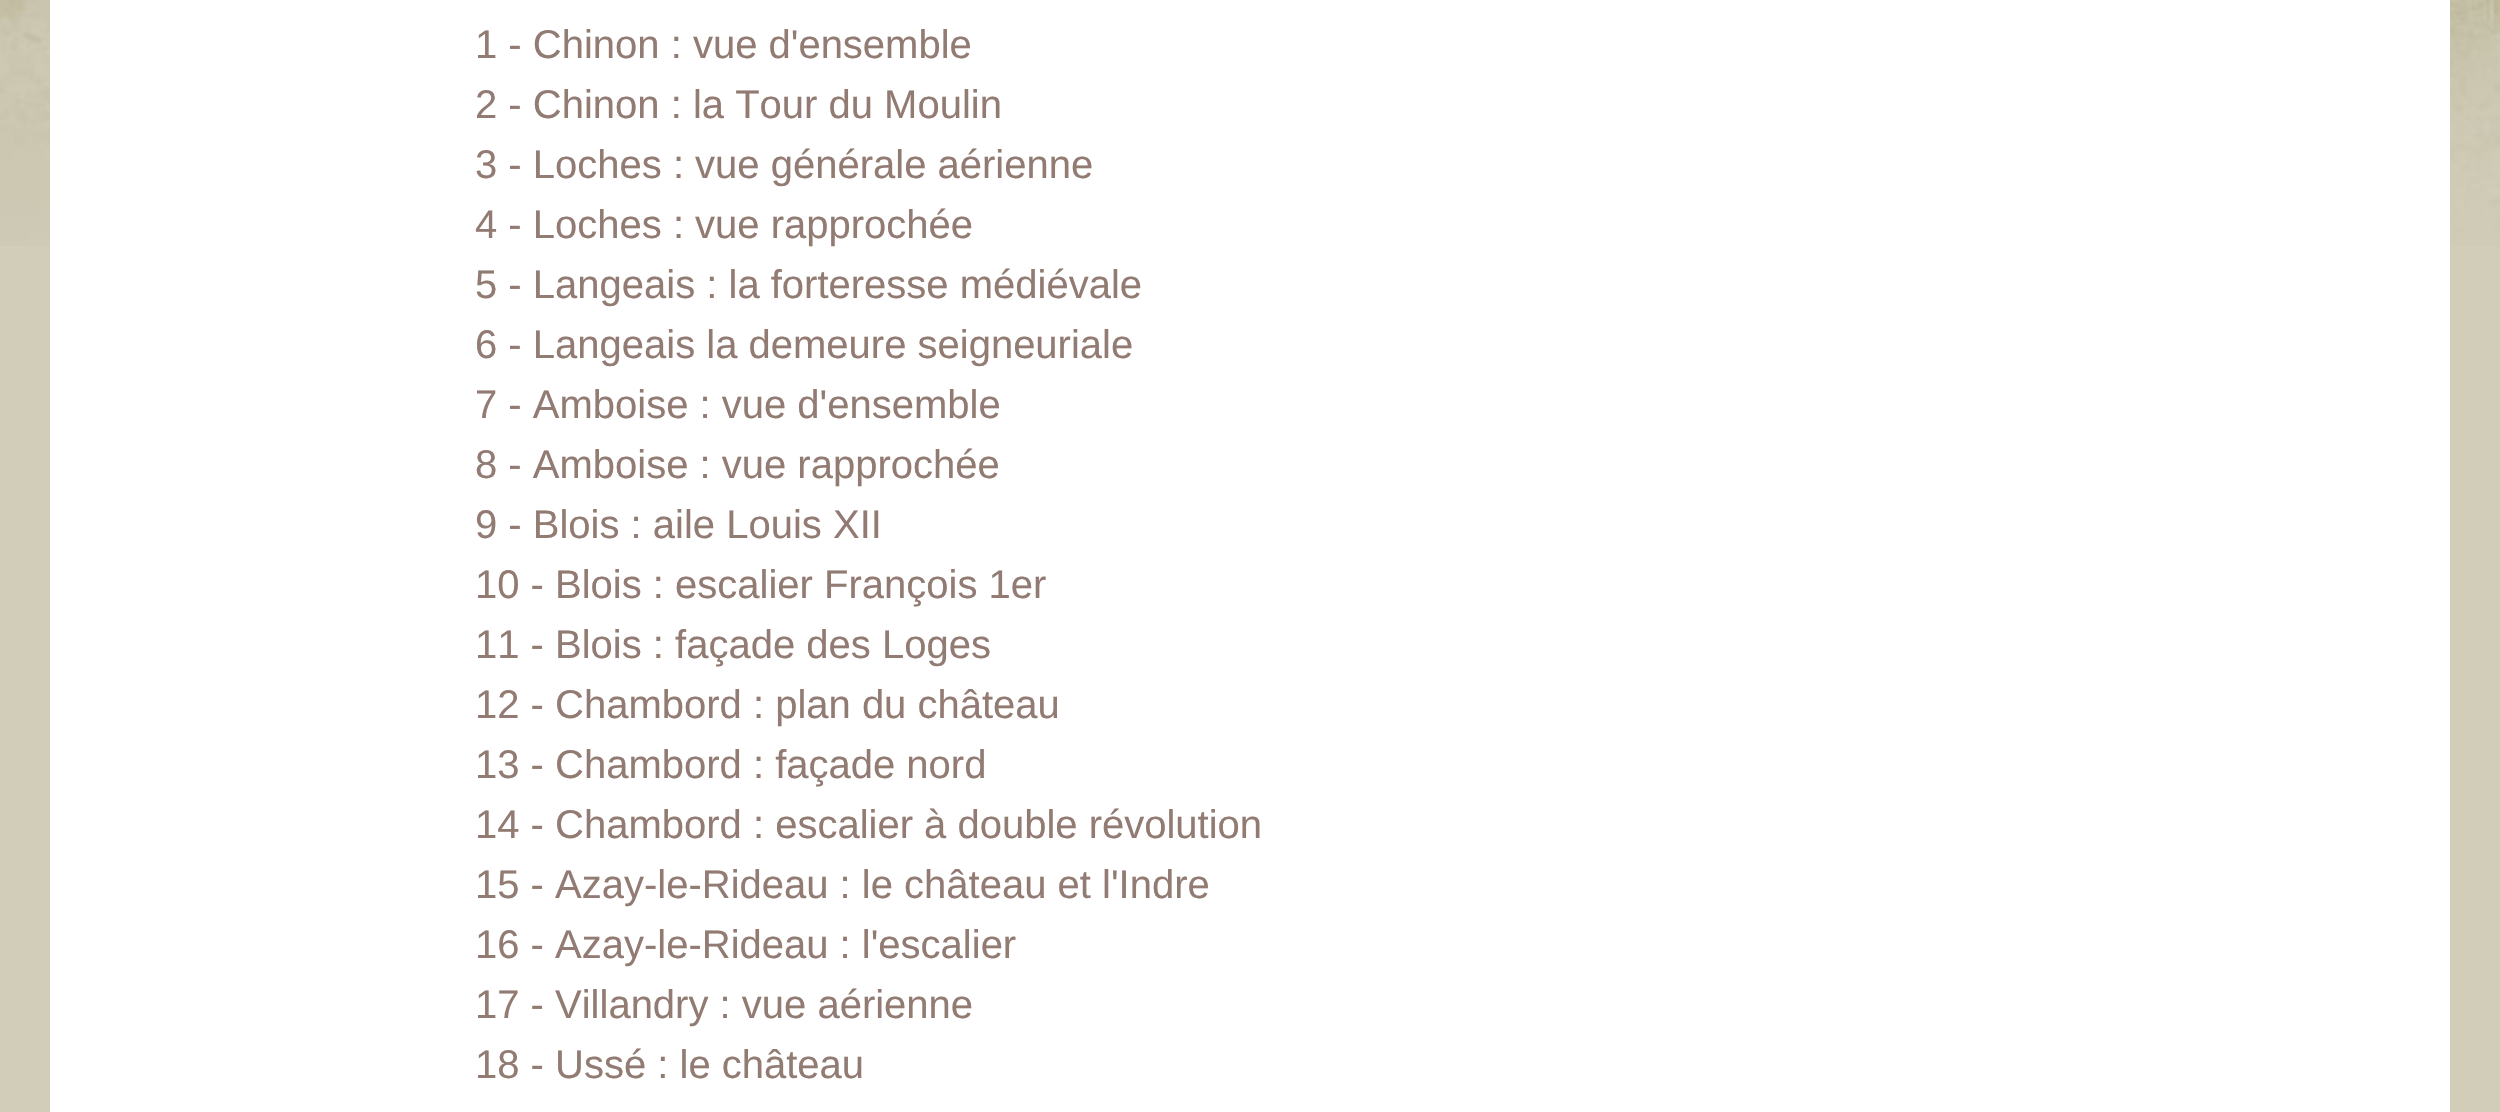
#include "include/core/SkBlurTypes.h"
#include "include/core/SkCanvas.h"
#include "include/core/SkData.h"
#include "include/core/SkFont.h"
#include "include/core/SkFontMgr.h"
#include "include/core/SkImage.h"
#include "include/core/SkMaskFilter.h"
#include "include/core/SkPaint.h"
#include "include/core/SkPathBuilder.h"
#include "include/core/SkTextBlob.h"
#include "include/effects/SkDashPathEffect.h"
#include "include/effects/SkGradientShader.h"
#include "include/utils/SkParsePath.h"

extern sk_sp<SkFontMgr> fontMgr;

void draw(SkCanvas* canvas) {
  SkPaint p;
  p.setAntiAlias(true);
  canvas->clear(SkColorSetRGB(210, 205, 185));
  canvas->drawImageRect(SkImages::DeferredFromEncodedData(SkData::MakeFromFileName("images/1.png")), SkRect::MakeLTRB(0, 0, 2500, 246), SkSamplingOptions());
  p.setColor(SK_ColorWHITE);
  canvas->drawRect(SkRect::MakeLTRB(50, 0, 2450, 1112), p);
  SkFont font1(fontMgr->matchFamilyStyle("Liberation Sans", SkFontStyle::Normal()), 40);
  font1.setSubpixel(true);
  p.setColor(SkColorSetRGB(146, 123, 115));
  canvas->drawString("1 - Chinon : vue d'ensemble", 475, 58, font1, p);
  canvas->drawString("2 - Chinon : la Tour du Moulin", 475, 118, font1, p);
  canvas->drawString("3 - Loches : vue générale aérienne", 475, 178, font1, p);
  canvas->drawString("4 - Loches : vue rapprochée", 475, 238, font1, p);
  canvas->drawString("5 - Langeais : la forteresse médiévale", 475, 298, font1, p);
  canvas->drawString("6 - Langeais la demeure seigneuriale", 475, 358, font1, p);
  canvas->drawString("7 - Amboise : vue d'ensemble", 475, 418, font1, p);
  canvas->drawString("8 - Amboise : vue rapprochée", 475, 478, font1, p);
  canvas->drawString("9 - Blois : aile Louis XII", 475, 538, font1, p);
  canvas->drawString("10 - Blois : escalier François 1er", 475, 598, font1, p);
  canvas->drawString("11 - Blois : façade des Loges", 475, 658, font1, p);
  canvas->drawString("12 - Chambord : plan du château", 475, 718, font1, p);
  canvas->drawString("13 - Chambord : façade nord", 475, 778, font1, p);
  canvas->drawString("14 - Chambord : escalier à double révolution", 475, 838, font1, p);
  canvas->drawString("15 - Azay-le-Rideau : le château et l'Indre", 475, 898, font1, p);
  canvas->drawString("16 - Azay-le-Rideau : l'escalier", 475, 958, font1, p);
  canvas->drawString("17 - Villandry : vue aérienne", 475, 1018, font1, p);
  canvas->drawString("18 - Ussé : le château", 475, 1078, font1, p);
}
